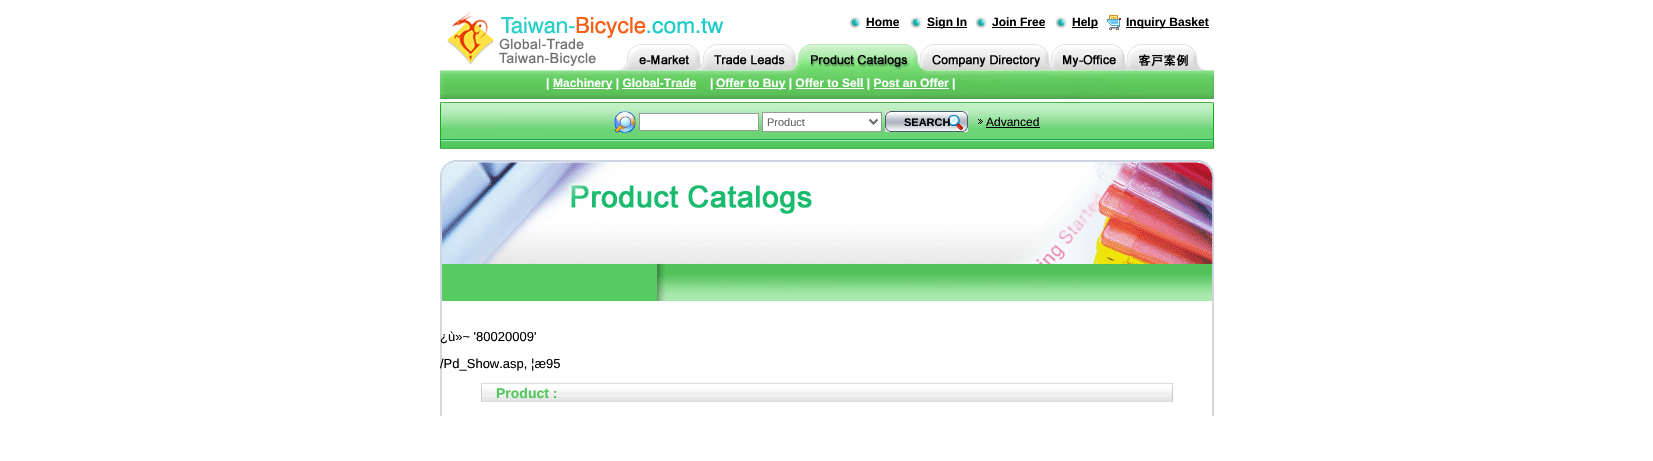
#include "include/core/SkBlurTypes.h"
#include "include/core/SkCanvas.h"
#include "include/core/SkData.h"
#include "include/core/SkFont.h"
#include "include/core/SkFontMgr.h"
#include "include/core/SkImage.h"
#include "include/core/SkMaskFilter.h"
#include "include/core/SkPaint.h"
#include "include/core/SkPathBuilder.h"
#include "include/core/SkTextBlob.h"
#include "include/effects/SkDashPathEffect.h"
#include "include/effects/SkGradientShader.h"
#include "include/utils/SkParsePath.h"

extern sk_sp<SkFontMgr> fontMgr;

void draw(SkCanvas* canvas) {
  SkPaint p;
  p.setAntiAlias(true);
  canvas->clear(SK_ColorWHITE);
  canvas->drawImageRect(SkImages::DeferredFromEncodedData(SkData::MakeFromFileName("images/1.png")), SkRect::MakeLTRB(440, 12, 618, 76), SkSamplingOptions());
  canvas->drawImageRect(SkImages::DeferredFromEncodedData(SkData::MakeFromFileName("images/2.png")), SkRect::MakeLTRB(618, 17, 724, 34), SkSamplingOptions());
  canvas->drawImageRect(SkImages::DeferredFromEncodedData(SkData::MakeFromFileName("images/3.png")), SkRect::MakeLTRB(849, 16, 861, 28), SkSamplingOptions());
  p.setColor(SK_ColorBLACK);
  canvas->drawRect(SkRect::MakeLTRB(866, 27, 899, 28), p);
  canvas->drawImageRect(SkImages::DeferredFromEncodedData(SkData::MakeFromFileName("images/3.png")), SkRect::MakeLTRB(910, 16, 922, 28), SkSamplingOptions());
  canvas->drawRect(SkRect::MakeLTRB(927, 27, 967, 28), p);
  canvas->drawImageRect(SkImages::DeferredFromEncodedData(SkData::MakeFromFileName("images/3.png")), SkRect::MakeLTRB(975, 16, 987, 28), SkSamplingOptions());
  canvas->drawRect(SkRect::MakeLTRB(992, 27, 1045, 28), p);
  canvas->drawImageRect(SkImages::DeferredFromEncodedData(SkData::MakeFromFileName("images/3.png")), SkRect::MakeLTRB(1055, 16, 1067, 28), SkSamplingOptions());
  canvas->drawRect(SkRect::MakeLTRB(1072, 27, 1098, 28), p);
  canvas->drawImageRect(SkImages::DeferredFromEncodedData(SkData::MakeFromFileName("images/4.png")), SkRect::MakeLTRB(1107, 15, 1121, 30), SkSamplingOptions());
  canvas->drawRect(SkRect::MakeLTRB(1126, 27, 1209, 28), p);
  canvas->drawImageRect(SkImages::DeferredFromEncodedData(SkData::MakeFromFileName("images/5.png")), SkRect::MakeLTRB(618, 44, 703, 76), SkSamplingOptions());
  canvas->drawImageRect(SkImages::DeferredFromEncodedData(SkData::MakeFromFileName("images/6.png")), SkRect::MakeLTRB(703, 44, 797, 76), SkSamplingOptions());
  canvas->drawImageRect(SkImages::DeferredFromEncodedData(SkData::MakeFromFileName("images/7.png")), SkRect::MakeLTRB(797, 44, 919, 76), SkSamplingOptions());
  canvas->drawImageRect(SkImages::DeferredFromEncodedData(SkData::MakeFromFileName("images/8.png")), SkRect::MakeLTRB(919, 44, 1050, 76), SkSamplingOptions());
  canvas->drawImageRect(SkImages::DeferredFromEncodedData(SkData::MakeFromFileName("images/9.png")), SkRect::MakeLTRB(1050, 44, 1126, 76), SkSamplingOptions());
  canvas->drawImageRect(SkImages::DeferredFromEncodedData(SkData::MakeFromFileName("images/10.png")), SkRect::MakeLTRB(1126, 44, 1214, 76), SkSamplingOptions());
  canvas->drawImageRect(SkImages::DeferredFromEncodedData(SkData::MakeFromFileName("images/11.png")), SkRect::MakeLTRB(440, 76, 1214, 99), SkSamplingOptions());
  p.setColor(SK_ColorWHITE);
  canvas->drawRect(SkRect::MakeLTRB(553, 88, 612, 89), p);
  canvas->drawRect(SkRect::MakeLTRB(622, 88, 696, 89), p);
  canvas->drawRect(SkRect::MakeLTRB(716, 88, 786, 89), p);
  canvas->drawRect(SkRect::MakeLTRB(796, 88, 864, 89), p);
  canvas->drawRect(SkRect::MakeLTRB(874, 88, 949, 89), p);
  canvas->drawImageRect(SkImages::DeferredFromEncodedData(SkData::MakeFromFileName("images/12.png")), SkRect::MakeLTRB(440, 102, 1214, 149), SkSamplingOptions());
  canvas->drawImageRect(SkImages::DeferredFromEncodedData(SkData::MakeFromFileName("images/13.png")), SkRect::MakeLTRB(614, 111, 636, 133), SkSamplingOptions());
  canvas->drawRect(SkRect::MakeLTRB(639.5f, 113.5f, 758.5f, 130.5f), p);
  p.setStyle(SkPaint::kStroke_Style);
  p.setStrokeWidth(1);
  p.setColor(SkColorSetRGB(153, 153, 153));
  canvas->drawRect(SkRect::MakeLTRB(639.5f, 113.5f, 758.5f, 130.5f), p);
  p.setStyle(SkPaint::kFill_Style);
  p.setColor(SK_ColorWHITE);
  canvas->drawRect(SkRect::MakeLTRB(762.5f, 112.5f, 881.5f, 131.5f), p);
  p.setStyle(SkPaint::kStroke_Style);
  p.setColor(SkColorSetRGB(153, 153, 153));
  canvas->drawRect(SkRect::MakeLTRB(762.5f, 112.5f, 881.5f, 131.5f), p);
  p.setStrokeWidth(2);
  p.setColor(SkColorSetRGB(102, 102, 102));
  canvas->drawPath(SkPathBuilder().moveTo(869.5f, 119.5f).lineTo(873.5f, 123.5f).lineTo(877.5f, 119.5f).detach(), p);
  p.setStyle(SkPaint::kFill_Style);
  p.setColor(SkColorSetRGB(229, 229, 229));
  canvas->drawRect(SkRect::MakeLTRB(885, 111, 968, 132), p);
  canvas->drawImageRect(SkImages::DeferredFromEncodedData(SkData::MakeFromFileName("images/14.png")), SkRect::MakeLTRB(885, 111, 968, 132), SkSamplingOptions());
  canvas->drawImageRect(SkImages::DeferredFromEncodedData(SkData::MakeFromFileName("images/15.png")), SkRect::MakeLTRB(978, 119, 983, 124), SkSamplingOptions());
  p.setColor(SK_ColorBLACK);
  canvas->drawRect(SkRect::MakeLTRB(986, 127, 1040, 128), p);
  canvas->drawImageRect(SkImages::DeferredFromEncodedData(SkData::MakeFromFileName("images/16.png")), SkRect::MakeLTRB(440, 160, 1214, 301), SkSamplingOptions());
  canvas->drawImageRect(SkImages::DeferredFromEncodedData(SkData::MakeFromFileName("images/17.png")), SkRect::MakeLTRB(440, 301, 1214, 315), SkSamplingOptions());
  canvas->drawImageRect(SkImages::DeferredFromEncodedData(SkData::MakeFromFileName("images/17.png")), SkRect::MakeLTRB(440, 315, 1214, 329), SkSamplingOptions());
  canvas->drawImageRect(SkImages::DeferredFromEncodedData(SkData::MakeFromFileName("images/18.png")), SkRect::MakeLTRB(440, 329, 1214, 416), SkSamplingOptions());
  canvas->drawImageRect(SkImages::DeferredFromEncodedData(SkData::MakeFromFileName("images/19.png")), SkRect::MakeLTRB(481, 383, 1173, 402), SkSamplingOptions());
  SkFont font1(fontMgr->matchFamilyStyle("Liberation Sans", SkFontStyle::Bold()), 12);
  font1.setSubpixel(true);
  canvas->drawString("Home", 866, 26, font1, p);
  canvas->drawString("Sign In", 927, 26, font1, p);
  canvas->drawString("Join Free", 992, 26, font1, p);
  canvas->drawString("Help", 1072, 26, font1, p);
  canvas->drawString("Inquiry Basket", 1126, 26, font1, p);
  p.setColor(SK_ColorWHITE);
  canvas->drawString("|", 546, 87, font1, p);
  canvas->drawString("Machinery | Global-Trade", 553, 87, font1, p);
  canvas->drawString("|", 710, 87, font1, p);
  canvas->drawString("Offer to Buy | Offer to Sell | Post an Offer |", 716, 87, font1, p);
  SkFont font2(fontMgr->matchFamilyStyle("Liberation Sans", SkFontStyle::Normal()), 11);
  font2.setSubpixel(true);
  p.setColor(SkColorSetRGB(102, 102, 102));
  canvas->drawString("Product", 767, 126, font2, p);
  SkFont font3(fontMgr->matchFamilyStyle("Liberation Sans", SkFontStyle::Bold()), 11);
  font3.setSubpixel(true);
  p.setColor(SK_ColorBLACK);
  canvas->drawString("SEARCH", 904, 126, font3, p);
  SkFont font4(fontMgr->matchFamilyStyle("Liberation Sans", SkFontStyle::Normal()), 12);
  font4.setSubpixel(true);
  canvas->drawString("Advanced", 986, 126, font4, p);
  SkFont font5(fontMgr->matchFamilyStyle("Liberation Sans", SkFontStyle::Normal()), 13);
  font5.setSubpixel(true);
  canvas->drawString("¿ù»~ '80020009'", 440, 341, font5, p);
  canvas->drawString("/Pd_Show.asp, ¦æ95", 440, 368, font5, p);
  SkFont font6(fontMgr->matchFamilyStyle("Liberation Sans", SkFontStyle::Bold()), 14);
  font6.setSubpixel(true);
  p.setColor(SkColorSetRGB(83, 200, 94));
  canvas->drawString("Product :", 496, 398, font6, p);
}
